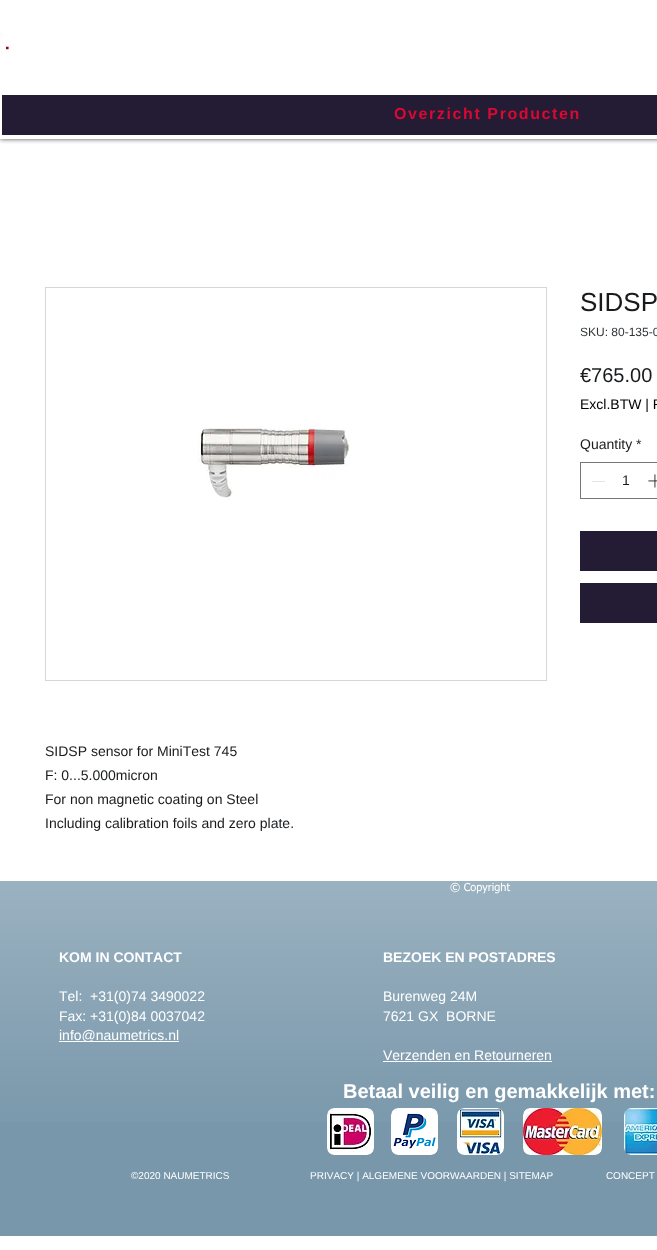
<svg xmlns="http://www.w3.org/2000/svg" width="657" height="1250">
<style>*{font-kerning:none!important;font-variant-ligatures:none!important}</style>
<defs>
<clipPath id="clip1"><rect x="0" y="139" width="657" height="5"/></clipPath>
</defs>
<rect width="100%" height="100%" fill="#fff"/>
<g clip-path="url(#clip1)">
<rect width="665" height="139" fill="#000000b3" filter="blur(2.5px)"/>
</g>
<image x="0" y="33" width="10" height="20" href="media/1.png"/>
<rect x="2" y="95" width="655" height="40" fill="#231c34"/>
<text x="394" y="119" style="font-family:Liberation Sans;font-size:16px;font-weight:bold;letter-spacing:1.6px;fill:#db0834">Overzicht Producten</text>
<text x="580" y="311" style="font-family:Liberation Sans;font-size:26px;fill:#181a1c">SIDSP</text>
<text x="580" y="336" style="font-family:Liberation Sans;font-size:12px;fill:#313538">SKU: 80-135-0</text>
<text x="580" y="382" style="font-family:Liberation Sans;font-size:20px;fill:#181a1c">€765.00</text>
<text x="580" y="409" style="font-family:Liberation Sans;font-size:14px;fill:#000">Excl.BTW | F</text>
<text x="580" y="449" style="font-family:Liberation Sans;font-size:14px;fill:#181a1c">Quantity *</text>
<rect x="580.5" y="462.5" width="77" height="36" fill="none" stroke="#747677"/>
<rect x="592" y="481" width="13" height="1" fill="#e3e3e3"/>
<text x="622" y="485" style="font-family:Liberation Sans;font-size:14px;fill:#181a1c">1</text>
<image x="648" y="474" width="9" height="14" href="media/2.png"/>
<rect x="580" y="531" width="77" height="40" fill="#231c34"/>
<rect x="580" y="583" width="77" height="40" fill="#231c34"/>
<rect x="45.5" y="287.5" width="501" height="393" fill="none" stroke="#d4d6d7"/>
<image x="198" y="424" width="152" height="76" href="media/3.png"/>
<text x="45" y="756" style="font-family:Liberation Sans;font-size:14px;fill:#181a1c">SIDSP sensor for MiniTest 745</text>
<text x="45" y="780" style="font-family:Liberation Sans;font-size:14px;fill:#181a1c">F: 0...5.000micron</text>
<text x="45" y="804" style="font-family:Liberation Sans;font-size:14px;fill:#181a1c">For non magnetic coating on Steel</text>
<text x="45" y="828" style="font-family:Liberation Sans;font-size:14px;fill:#181a1c">Including calibration foils and zero plate.</text>
<rect y="881" width="657" height="355" fill="#7897ab"/>
<image x="0" y="881" width="657" height="241" href="media/4.png"/>
<text x="450" y="891" style="font-family:tahoma;font-size:11px;fill:#fff">© Copyright</text>
<text x="59" y="962" style="font-family:Liberation Sans;font-size:14px;font-weight:bold;fill:#fff">KOM IN CONTACT</text>
<text x="59" y="1001" style="font-family:Liberation Sans;font-size:14px;fill:#fff" xml:space="preserve">Tel:  +31(0)74 3490022</text>
<text x="59" y="1021" style="font-family:Liberation Sans;font-size:14px;fill:#fff">Fax: +31(0)84 0037042</text>
<rect x="59" y="1041" width="120" height="1" fill="#fff"/>
<text x="59" y="1040" style="font-family:Liberation Sans;font-size:14px;fill:#fff">info@naumetrics.nl</text>
<text x="383" y="962" style="font-family:Liberation Sans;font-size:14px;font-weight:bold;fill:#fff">BEZOEK EN POSTADRES</text>
<text x="383" y="1001" style="font-family:Liberation Sans;font-size:14px;fill:#fff">Burenweg 24M</text>
<text x="383" y="1021" style="font-family:Liberation Sans;font-size:14px;fill:#fff" xml:space="preserve">7621 GX  BORNE</text>
<text x="383" y="1060" style="font-family:Liberation Sans;font-size:14px;fill:#fff">Verzenden en Retourneren</text>
<rect x="383" y="1061" width="169" height="1" fill="#fff"/>
<text x="343" y="1098" style="font-family:Liberation Sans;font-size:20px;font-weight:bold;fill:#fff">Betaal veilig en gemakkelijk met:</text>
<image x="327" y="1108" width="47" height="47" href="media/5.png"/>
<image x="391" y="1108" width="47" height="47" href="media/6.png"/>
<image x="457" y="1108" width="47" height="47" href="media/7.png"/>
<image x="523" y="1108" width="79" height="47" href="media/8.png"/>
<image x="624" y="1108" width="33" height="47" href="media/9.png"/>
<text x="131" y="1179" style="font-family:Liberation Sans;font-size:10px;fill:#fff" xml:space="preserve">©2020 NAUMETRICS                             PRIVACY | ALGEMENE VOORWAARDEN | SITEMAP                   CONCEPT</text>
</svg>
